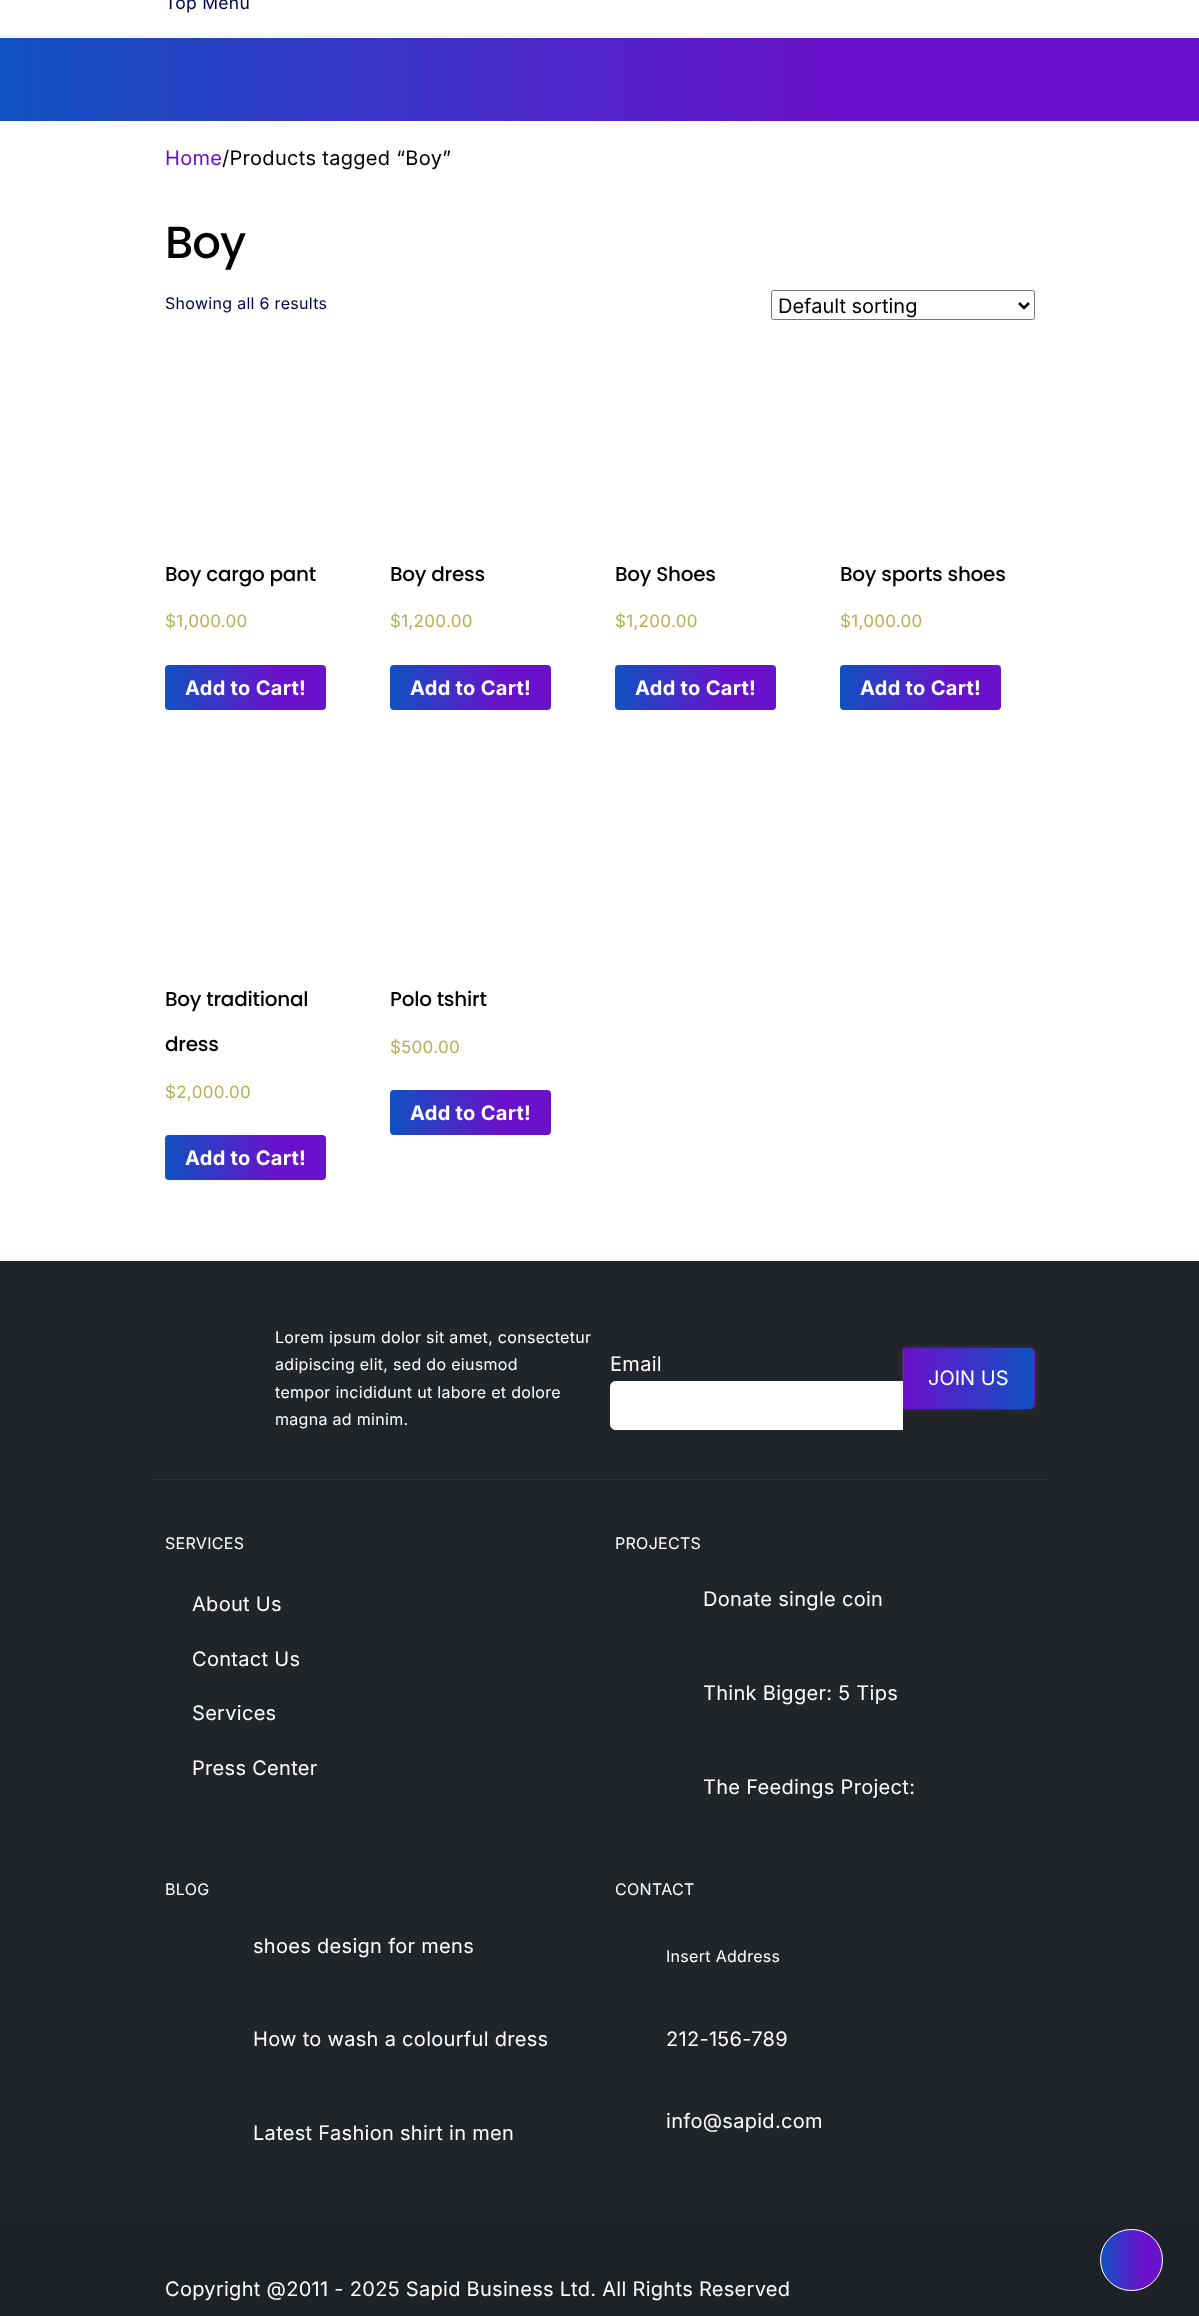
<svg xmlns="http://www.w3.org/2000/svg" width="1199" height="2316">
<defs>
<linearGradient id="g1" gradientUnits="userSpaceOnUse" x1="0" y1="79" x2="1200" y2="79"><stop offset="0" stop-color="#1051c2"/><stop offset="0.7" stop-color="#6a11cb"/></linearGradient>
<linearGradient id="g2" gradientUnits="userSpaceOnUse" x1="165" y1="688" x2="326" y2="688"><stop offset="0" stop-color="#1051c2"/><stop offset="0.7" stop-color="#6a11cb"/></linearGradient>
<linearGradient id="g3" gradientUnits="userSpaceOnUse" x1="390" y1="688" x2="551" y2="688"><stop offset="0" stop-color="#1051c2"/><stop offset="0.7" stop-color="#6a11cb"/></linearGradient>
<linearGradient id="g4" gradientUnits="userSpaceOnUse" x1="615" y1="688" x2="776" y2="688"><stop offset="0" stop-color="#1051c2"/><stop offset="0.7" stop-color="#6a11cb"/></linearGradient>
<linearGradient id="g5" gradientUnits="userSpaceOnUse" x1="840" y1="688" x2="1001" y2="688"><stop offset="0" stop-color="#1051c2"/><stop offset="0.7" stop-color="#6a11cb"/></linearGradient>
<linearGradient id="g6" gradientUnits="userSpaceOnUse" x1="165" y1="1158" x2="326" y2="1158"><stop offset="0" stop-color="#1051c2"/><stop offset="0.7" stop-color="#6a11cb"/></linearGradient>
<linearGradient id="g7" gradientUnits="userSpaceOnUse" x1="390" y1="1113" x2="551" y2="1113"><stop offset="0" stop-color="#1051c2"/><stop offset="0.7" stop-color="#6a11cb"/></linearGradient>
<linearGradient id="g8" gradientUnits="userSpaceOnUse" x1="774" y1="1378" x2="904" y2="1378"><stop offset="0" stop-color="#6a11cb"/><stop offset="1" stop-color="#1051c2"/></linearGradient>
<clipPath id="clip1"><path d="M903 1348h126c3.5 0 6 2.5 6 6v49c0 3.5-2.5 6-6 6h-126z"/></clipPath>
<linearGradient id="g9" gradientUnits="userSpaceOnUse" x1="904" y1="1378" x2="1034" y2="1378"><stop offset="0" stop-color="#6a11cb"/><stop offset="1" stop-color="#1051c2"/></linearGradient>
<linearGradient id="g10" gradientUnits="userSpaceOnUse" x1="1034" y1="1378" x2="1164" y2="1378"><stop offset="0" stop-color="#6a11cb"/><stop offset="1" stop-color="#1051c2"/></linearGradient>
<clipPath id="clip2"><rect x="1100" y="2229" width="63" height="62" rx="31"/></clipPath>
<linearGradient id="g11" gradientUnits="userSpaceOnUse" x1="1101" y1="2260" x2="1161" y2="2260"><stop offset="0" stop-color="#1051c2"/><stop offset="0.7" stop-color="#6a11cb"/></linearGradient>
<linearGradient id="g12" gradientUnits="userSpaceOnUse" x1="1161" y1="2260" x2="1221" y2="2260"><stop offset="0" stop-color="#1051c2"/><stop offset="0.7" stop-color="#6a11cb"/></linearGradient>
</defs>
<rect width="100%" height="100%" fill="#fff"/>
<rect y="36" width="1199" height="1" fill="#edeff0"/>
<text x="165" y="9" style="font-family:Inter;font-size:17.5px;letter-spacing:0.3px;fill:#00004d">Top Menu</text>
<rect y="38" width="1199" height="83" fill="url(#g1)"/>
<text x="165" y="165" style="font-family:Inter;font-size:20px;letter-spacing:0.3px;fill:#6a11cb">Home</text>
<text x="222" y="165" style="font-family:Inter;font-size:20px;letter-spacing:0.3px;fill:#000">/Products tagged “Boy”</text>
<text x="165" y="258" style="font-family:Poppins;font-size:45px;font-weight:500;letter-spacing:-1px;fill:#000">Boy</text>
<text x="165" y="309" style="font-family:Inter;font-size:16px;letter-spacing:0.3px;fill:#00004d">Showing all 6 results</text>
<rect x="771.5" y="290.5" width="263" height="29" rx="2" fill="none" stroke="#767676"/>
<path d="M1019 303l5 5l5-5" fill="none" stroke="#000" stroke-width="2.5"/>
<text x="778" y="313" style="font-family:Inter;font-size:20px;fill:#000">Default sorting</text>
<text x="165" y="581" style="font-family:Poppins;font-size:20px;font-weight:500;letter-spacing:-0.25px;fill:#000">Boy cargo pant</text>
<text x="165" y="627" style="font-family:Inter;font-size:17px;letter-spacing:0.3px;fill:#b3af54">$1,000.00</text>
<rect x="165" y="665" width="161" height="45" rx="4" fill="url(#g2)"/>
<text x="185" y="695" style="font-family:Inter;font-size:20px;font-weight:bold;letter-spacing:0.3px;fill:#fff">Add to Cart!</text>
<text x="390" y="581" style="font-family:Poppins;font-size:20px;font-weight:500;letter-spacing:-0.25px;fill:#000">Boy dress</text>
<text x="390" y="627" style="font-family:Inter;font-size:17px;letter-spacing:0.3px;fill:#b3af54">$1,200.00</text>
<rect x="390" y="665" width="161" height="45" rx="4" fill="url(#g3)"/>
<text x="410" y="695" style="font-family:Inter;font-size:20px;font-weight:bold;letter-spacing:0.3px;fill:#fff">Add to Cart!</text>
<text x="615" y="581" style="font-family:Poppins;font-size:20px;font-weight:500;letter-spacing:-0.25px;fill:#000">Boy Shoes</text>
<text x="615" y="627" style="font-family:Inter;font-size:17px;letter-spacing:0.3px;fill:#b3af54">$1,200.00</text>
<rect x="615" y="665" width="161" height="45" rx="4" fill="url(#g4)"/>
<text x="635" y="695" style="font-family:Inter;font-size:20px;font-weight:bold;letter-spacing:0.3px;fill:#fff">Add to Cart!</text>
<text x="840" y="581" style="font-family:Poppins;font-size:20px;font-weight:500;letter-spacing:-0.25px;fill:#000">Boy sports shoes</text>
<text x="840" y="627" style="font-family:Inter;font-size:17px;letter-spacing:0.3px;fill:#b3af54">$1,000.00</text>
<rect x="840" y="665" width="161" height="45" rx="4" fill="url(#g5)"/>
<text x="860" y="695" style="font-family:Inter;font-size:20px;font-weight:bold;letter-spacing:0.3px;fill:#fff">Add to Cart!</text>
<text x="165" y="1006" style="font-family:Poppins;font-size:20px;font-weight:500;letter-spacing:-0.25px;fill:#000">Boy traditional</text>
<text x="165" y="1051" style="font-family:Poppins;font-size:20px;font-weight:500;letter-spacing:-0.25px;fill:#000">dress</text>
<text x="165" y="1098" style="font-family:Inter;font-size:17px;letter-spacing:0.3px;fill:#b3af54">$2,000.00</text>
<rect x="165" y="1135" width="161" height="45" rx="4" fill="url(#g6)"/>
<text x="185" y="1165" style="font-family:Inter;font-size:20px;font-weight:bold;letter-spacing:0.3px;fill:#fff">Add to Cart!</text>
<text x="390" y="1006" style="font-family:Poppins;font-size:20px;font-weight:500;letter-spacing:-0.25px;fill:#000">Polo tshirt</text>
<text x="390" y="1053" style="font-family:Inter;font-size:17px;letter-spacing:0.3px;fill:#b3af54">$500.00</text>
<rect x="390" y="1090" width="161" height="45" rx="4" fill="url(#g7)"/>
<text x="410" y="1120" style="font-family:Inter;font-size:20px;font-weight:bold;letter-spacing:0.3px;fill:#fff">Add to Cart!</text>
<rect y="1260" width="1199" height="1" fill="#edeff0"/>
<rect y="1261" width="1199" height="962" fill="#212529"/>
<rect x="150" y="1479" width="900" height="1" fill="#2c3136"/>
<text x="275" y="1343" style="font-family:Inter;font-size:16px;letter-spacing:0.3px;fill:#fff">Lorem ipsum dolor sit amet, consectetur</text>
<text x="275" y="1370" style="font-family:Inter;font-size:16px;letter-spacing:0.3px;fill:#fff">adipiscing elit, sed do eiusmod</text>
<text x="275" y="1398" style="font-family:Inter;font-size:16px;letter-spacing:0.3px;fill:#fff">tempor incididunt ut labore et dolore</text>
<text x="275" y="1425" style="font-family:Inter;font-size:16px;letter-spacing:0.3px;fill:#fff">magna ad minim.</text>
<text x="610" y="1371" style="font-family:Inter;font-size:20px;letter-spacing:0.3px;fill:#fff">Email</text>
<path d="M616 1381h287v49h-287c-3.5 0-6-2.5-6-6v-37c0-3.5 2.5-6 6-6z" fill="#fff"/>
<rect x="614" y="1429" width="2" height="1" fill="#fff"/>
<rect x="903" y="1348" width="132" height="61" rx="6" fill="#73809d4d" filter="blur(2.5px)"/>
<rect x="903" y="1348" width="1" height="61" fill="url(#g8)"/>
<g clip-path="url(#clip1)">
<rect x="904" y="1348" width="130" height="61" fill="url(#g9)"/>
<rect x="1034" y="1348" width="1" height="61" fill="url(#g10)"/>
</g>
<text x="928" y="1385" style="font-family:Inter;font-size:20px;fill:#fff">JOIN US</text>
<text x="165" y="1549" style="font-family:Inter;font-size:16px;letter-spacing:0.3px;fill:#fff">SERVICES</text>
<text x="192" y="1611" style="font-family:Inter;font-size:20px;letter-spacing:0.3px;fill:#fff">About Us</text>
<text x="192" y="1666" style="font-family:Inter;font-size:20px;letter-spacing:0.3px;fill:#fff">Contact Us</text>
<text x="192" y="1720" style="font-family:Inter;font-size:20px;letter-spacing:0.3px;fill:#fff">Services</text>
<text x="192" y="1775" style="font-family:Inter;font-size:20px;letter-spacing:0.3px;fill:#fff">Press Center</text>
<text x="615" y="1549" style="font-family:Inter;font-size:16px;letter-spacing:0.3px;fill:#fff">PROJECTS</text>
<text x="703" y="1606" style="font-family:Inter;font-size:20px;letter-spacing:0.3px;fill:#fff">Donate single coin</text>
<text x="703" y="1700" style="font-family:Inter;font-size:20px;letter-spacing:0.3px;fill:#fff">Think Bigger: 5 Tips</text>
<text x="703" y="1794" style="font-family:Inter;font-size:20px;letter-spacing:0.3px;fill:#fff">The Feedings Project:</text>
<text x="165" y="1895" style="font-family:Inter;font-size:16px;letter-spacing:0.3px;fill:#fff">BLOG</text>
<text x="253" y="1953" style="font-family:Inter;font-size:20px;letter-spacing:0.3px;fill:#fff">shoes design for mens</text>
<text x="253" y="2046" style="font-family:Inter;font-size:20px;letter-spacing:0.3px;fill:#fff">How to wash a colourful dress</text>
<text x="253" y="2140" style="font-family:Inter;font-size:20px;letter-spacing:0.3px;fill:#fff">Latest Fashion shirt in men</text>
<text x="615" y="1895" style="font-family:Inter;font-size:16px;letter-spacing:0.3px;fill:#fff">CONTACT</text>
<text x="666" y="1962" style="font-family:Inter;font-size:16px;letter-spacing:0.3px;fill:#fff">Insert Address</text>
<text x="666" y="2046" style="font-family:Inter;font-size:20px;letter-spacing:0.3px;fill:#fff">212-156-789</text>
<text x="666" y="2128" style="font-family:Inter;font-size:20px;letter-spacing:0.3px;fill:#fff">info@sapid.com</text>
<rect y="2223" width="1199" height="93" fill="#1e2125"/>
<text x="165" y="2296" style="font-family:Inter;font-size:20px;letter-spacing:0.3px;fill:#fff">Copyright @2011 - 2025 Sapid Business Ltd. All Rights Reserved</text>
<g clip-path="url(#clip2)">
<rect x="1101" y="2229" width="60" height="62" fill="url(#g11)"/>
<rect x="1161" y="2249" width="2" height="22" fill="url(#g12)"/>
</g>
<rect x="1100.5" y="2229.5" width="62" height="61" rx="30.5" fill="none" stroke="#fff"/>
</svg>
